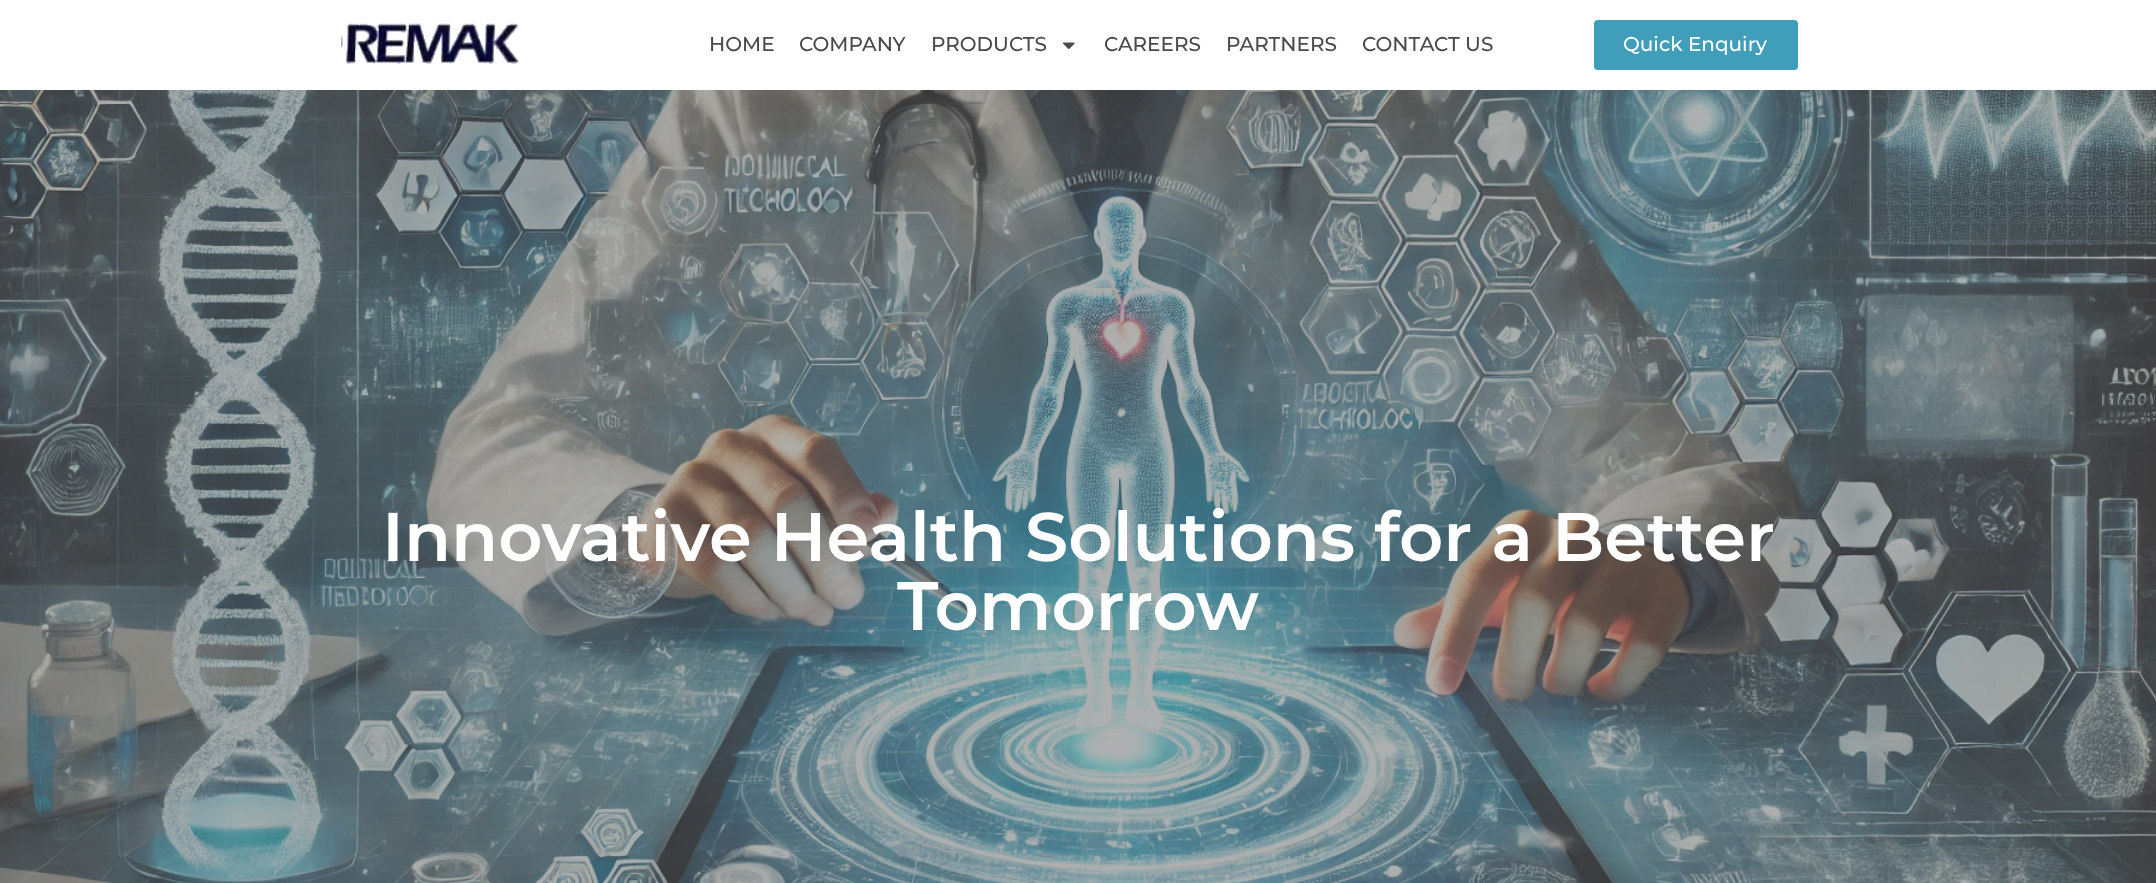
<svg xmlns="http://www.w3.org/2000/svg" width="2156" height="883">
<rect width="100%" height="100%" fill="#fff"/>
<image x="341" y="23" width="178" height="41" href="media/1.png"/>
<text x="709" y="51" style="font-family:Montserrat;font-size:20px;font-weight:500;fill:#4b494a">HOME</text>
<text x="799" y="51" style="font-family:Montserrat;font-size:20px;font-weight:500;fill:#4b494a">COMPANY</text>
<text x="931" y="51" style="font-family:Montserrat;font-size:20px;font-weight:500;fill:#4b494a">PRODUCTS</text>
<image x="1063" y="42" width="12" height="7" href="media/2.png"/>
<text x="1104" y="51" style="font-family:Montserrat;font-size:20px;font-weight:500;fill:#4b494a">CAREERS</text>
<text x="1226" y="51" style="font-family:Montserrat;font-size:20px;font-weight:500;fill:#4b494a">PARTNERS</text>
<text x="1362" y="51" style="font-family:Montserrat;font-size:20px;font-weight:500;fill:#4b494a">CONTACT US</text>
<rect x="1594" y="20" width="204" height="50" rx="4" fill="#419eba"/>
<text x="1623" y="51" style="font-family:Montserrat;font-size:20px;font-weight:500;fill:#fff">Quick Enquiry</text>
<image x="0" y="90" width="2156" height="793" href="media/3.png"/>
<text x="382" y="561" style="font-family:Montserrat;font-size:68.75px;font-weight:600;fill:#fff">Innovative Health Solutions for a Better</text>
<text x="897" y="630" style="font-family:Montserrat;font-size:68.75px;font-weight:600;fill:#fff">Tomorrow</text>
</svg>
